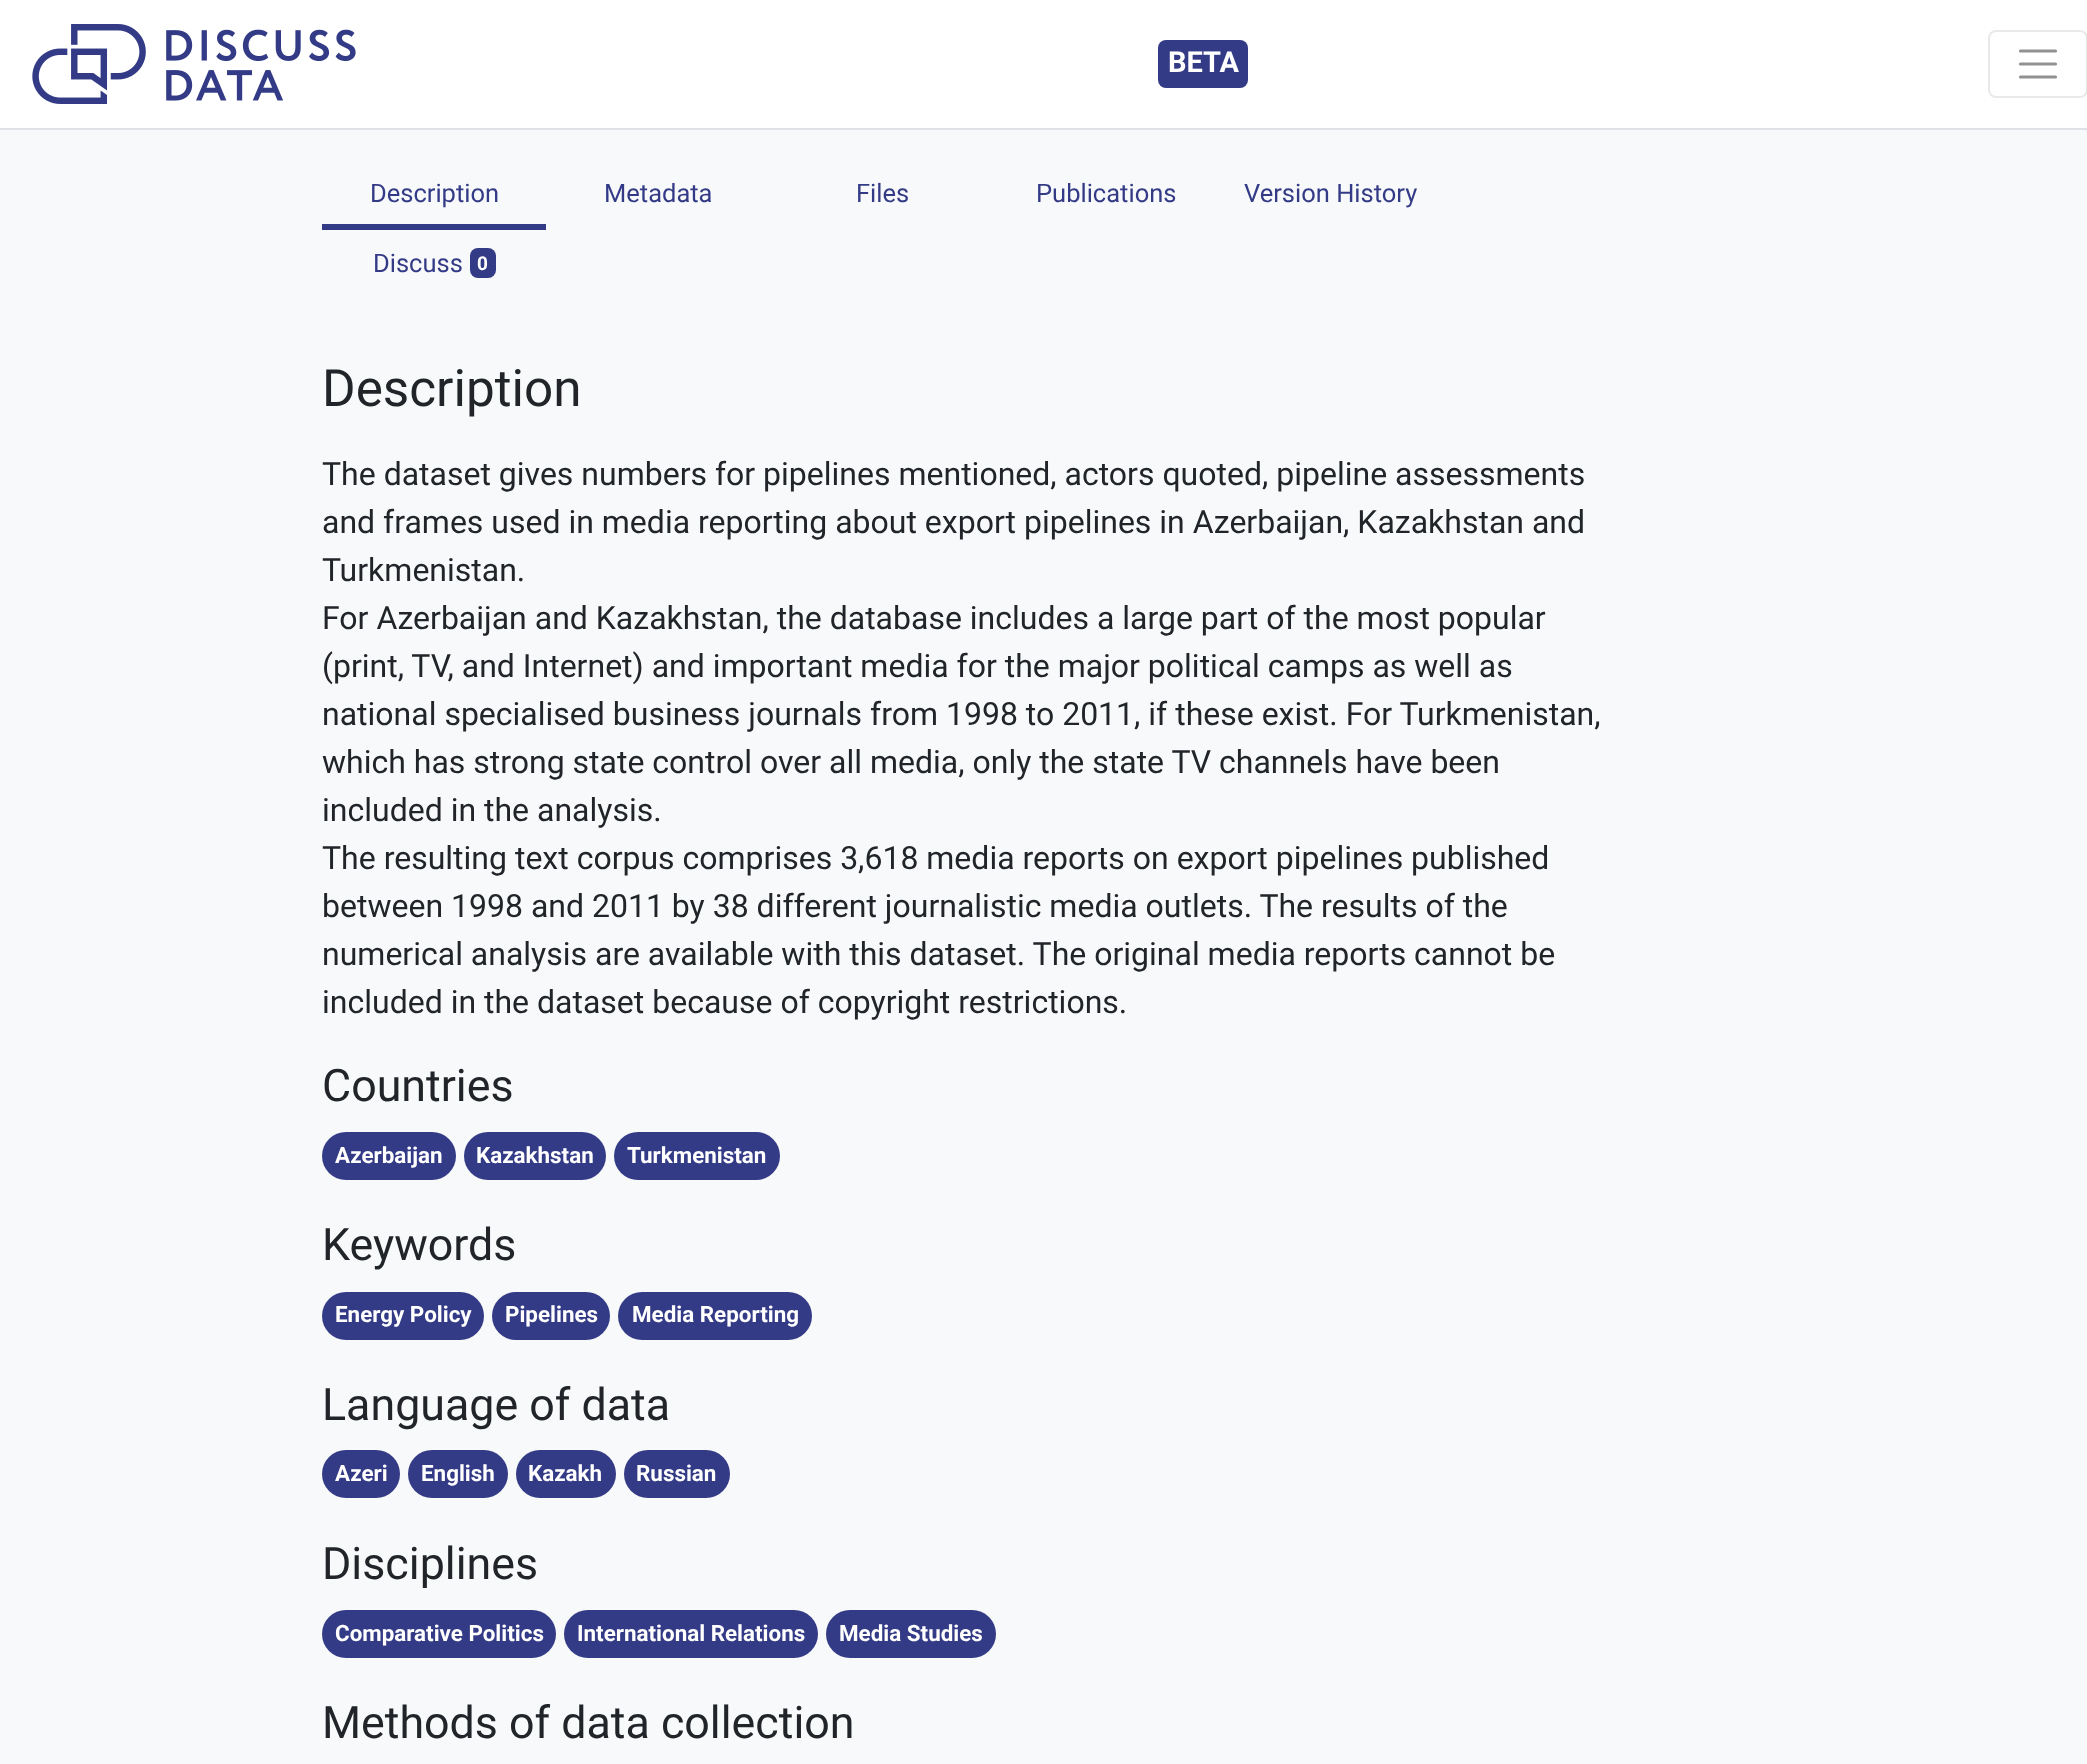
<svg xmlns="http://www.w3.org/2000/svg" width="2087" height="1764">
<rect width="100%" height="100%" fill="#f8f9fa"/>
<rect width="2087" height="128" fill="#fff"/>
<rect y="128" width="2087" height="2" fill="#dee2e6"/>
<image x="32" y="24" width="324" height="80" href="media/1.png"/>
<rect x="1158" y="40" width="90" height="48" rx="8" fill="#343b86"/>
<text x="1168" y="72" style="font-family:Roboto;font-size:29px;font-weight:bold;fill:#fff">BETA</text>
<rect x="1989" y="31" width="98" height="66" rx="7" fill="none" stroke="#e9e9e9" stroke-width="2"/>
<path d="M2020.5 51h35m-35 13h35m-35 13h35" fill="none" stroke="#919191" stroke-width="3.2" stroke-linecap="round"/>
<rect x="322" y="224" width="224" height="6" fill="#343b86"/>
<text x="370" y="202" style="font-family:Roboto;font-size:25.5px;fill:#343b86">Description</text>
<text x="604" y="202" style="font-family:Roboto;font-size:25.5px;fill:#343b86">Metadata</text>
<text x="856" y="202" style="font-family:Roboto;font-size:25.5px;fill:#343b86">Files</text>
<text x="1036" y="202" style="font-family:Roboto;font-size:25.5px;fill:#343b86">Publications</text>
<text x="1244" y="202" style="font-family:Roboto;font-size:25.5px;fill:#343b86">Version History</text>
<text x="373" y="272" style="font-family:Roboto;font-size:25.5px;fill:#343b86">Discuss</text>
<rect x="470" y="248" width="26" height="30" rx="8" fill="#343b86"/>
<text x="477" y="270" style="font-family:Roboto;font-size:19px;font-weight:bold;fill:#fff">0</text>
<text x="322" y="406" style="font-family:Roboto;font-size:51.25px;fill:#212529">Description</text>
<text x="322" y="485" style="font-family:Roboto;font-size:32px;fill:#212529">The dataset gives numbers for pipelines mentioned, actors quoted, pipeline assessments</text>
<text x="322" y="533" style="font-family:Roboto;font-size:32px;fill:#212529">and frames used in media reporting about export pipelines in Azerbaijan, Kazakhstan and</text>
<text x="322" y="581" style="font-family:Roboto;font-size:32px;fill:#212529">Turkmenistan.</text>
<text x="322" y="629" style="font-family:Roboto;font-size:32px;fill:#212529">For Azerbaijan and Kazakhstan, the database includes a large part of the most popular</text>
<text x="322" y="677" style="font-family:Roboto;font-size:32px;fill:#212529">(print, TV, and Internet) and important media for the major political camps as well as</text>
<text x="322" y="725" style="font-family:Roboto;font-size:32px;fill:#212529">national specialised business journals from 1998 to 2011, if these exist. For Turkmenistan,</text>
<text x="322" y="773" style="font-family:Roboto;font-size:32px;fill:#212529">which has strong state control over all media, only the state TV channels have been</text>
<text x="322" y="821" style="font-family:Roboto;font-size:32px;fill:#212529">included in the analysis.</text>
<text x="322" y="869" style="font-family:Roboto;font-size:32px;fill:#212529">The resulting text corpus comprises 3,618 media reports on export pipelines published</text>
<text x="322" y="917" style="font-family:Roboto;font-size:32px;fill:#212529">between 1998 and 2011 by 38 different journalistic media outlets. The results of the</text>
<text x="322" y="965" style="font-family:Roboto;font-size:32px;fill:#212529">numerical analysis are available with this dataset. The original media reports cannot be</text>
<text x="322" y="1013" style="font-family:Roboto;font-size:32px;fill:#212529">included in the dataset because of copyright restrictions.</text>
<text x="322" y="1101" style="font-family:Roboto;font-size:44.75px;fill:#212529">Countries</text>
<rect x="322" y="1132" width="134" height="48" rx="24" fill="#343b86"/>
<text x="335" y="1163" style="font-family:Roboto;font-size:22.4px;font-weight:bold;fill:#fff">Azerbaijan</text>
<rect x="464" y="1132" width="142" height="48" rx="24" fill="#343b86"/>
<text x="476" y="1163" style="font-family:Roboto;font-size:22.4px;font-weight:bold;fill:#fff">Kazakhstan</text>
<rect x="614" y="1132" width="166" height="48" rx="24" fill="#343b86"/>
<text x="627" y="1163" style="font-family:Roboto;font-size:22.4px;font-weight:bold;fill:#fff">Turkmenistan</text>
<text x="322" y="1260" style="font-family:Roboto;font-size:44.75px;fill:#212529">Keywords</text>
<rect x="322" y="1292" width="162" height="48" rx="24" fill="#343b86"/>
<text x="335" y="1322" style="font-family:Roboto;font-size:22.4px;font-weight:bold;fill:#fff">Energy Policy</text>
<rect x="492" y="1292" width="118" height="48" rx="24" fill="#343b86"/>
<text x="505" y="1322" style="font-family:Roboto;font-size:22.4px;font-weight:bold;fill:#fff">Pipelines</text>
<rect x="618" y="1292" width="194" height="48" rx="24" fill="#343b86"/>
<text x="632" y="1322" style="font-family:Roboto;font-size:22.4px;font-weight:bold;fill:#fff">Media Reporting</text>
<text x="322" y="1420" style="font-family:Roboto;font-size:44.75px;fill:#212529">Language of data</text>
<rect x="322" y="1450" width="78" height="48" rx="24" fill="#343b86"/>
<text x="335" y="1481" style="font-family:Roboto;font-size:22.4px;font-weight:bold;fill:#fff">Azeri</text>
<rect x="408" y="1450" width="100" height="48" rx="24" fill="#343b86"/>
<text x="421" y="1481" style="font-family:Roboto;font-size:22.4px;font-weight:bold;fill:#fff">English</text>
<rect x="516" y="1450" width="100" height="48" rx="24" fill="#343b86"/>
<text x="528" y="1481" style="font-family:Roboto;font-size:22.4px;font-weight:bold;fill:#fff">Kazakh</text>
<rect x="624" y="1450" width="106" height="48" rx="24" fill="#343b86"/>
<text x="636" y="1481" style="font-family:Roboto;font-size:22.4px;font-weight:bold;fill:#fff">Russian</text>
<text x="322" y="1579" style="font-family:Roboto;font-size:44.75px;fill:#212529">Disciplines</text>
<rect x="322" y="1610" width="234" height="48" rx="24" fill="#343b86"/>
<text x="335" y="1641" style="font-family:Roboto;font-size:22.4px;font-weight:bold;fill:#fff">Comparative Politics</text>
<rect x="564" y="1610" width="254" height="48" rx="24" fill="#343b86"/>
<text x="577" y="1641" style="font-family:Roboto;font-size:22.4px;font-weight:bold;fill:#fff">International Relations</text>
<rect x="826" y="1610" width="170" height="48" rx="24" fill="#343b86"/>
<text x="839" y="1641" style="font-family:Roboto;font-size:22.4px;font-weight:bold;fill:#fff">Media Studies</text>
<text x="322" y="1738" style="font-family:Roboto;font-size:44.75px;fill:#212529">Methods of data collection</text>
</svg>
